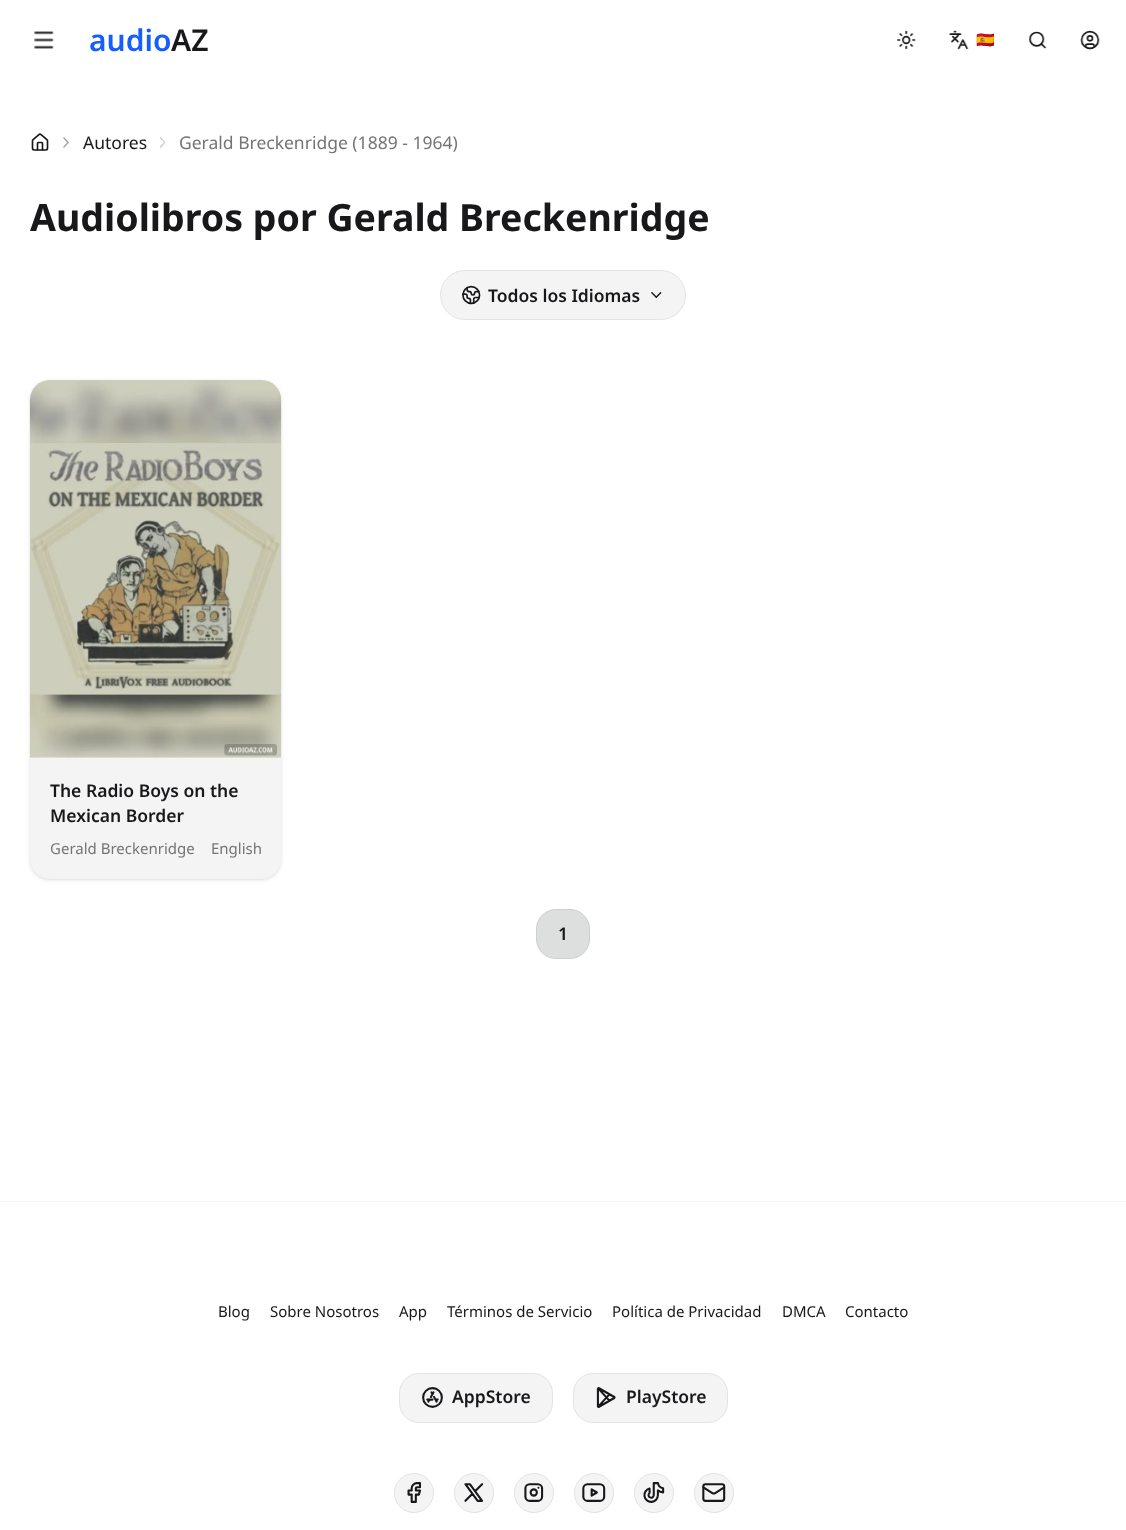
<svg xmlns="http://www.w3.org/2000/svg" width="1126" height="1530">
<rect width="100%" height="100%" fill="#fff"/>
<image x="34" y="31" width="20" height="18" href="media/1.png"/>
<text x="89" y="51" style="font-family:Noto Sans;font-size:30px;font-weight:600;fill:#155dfc">audio</text>
<text x="171" y="51" style="font-family:Noto Sans;font-size:30px;font-weight:600;fill:#18181b">AZ</text>
<image x="897" y="30" width="19" height="20" href="media/2.png"/>
<image x="949" y="30" width="20" height="20" href="media/3.png"/>
<text x="976" y="45" style="font-family:Noto Color Emoji;font-size:15px;fill:#18181b">🇪🇸</text>
<image x="1029" y="31" width="18" height="18" href="media/4.png"/>
<image x="1080" y="30" width="20" height="20" href="media/5.png"/>
<image x="31" y="133" width="18" height="18" href="media/6.png"/>
<path d="M64 137l5 5.5l-1 1l-5-5.5z" fill="#a3a3a4"/>
<path d="M68 141.5l1 1l-5 5.5l-1-1z" fill="#a3a3a4"/>
<text x="83" y="149" style="font-family:Noto Sans;font-size:17.5px;fill:#18181b">Autores</text>
<path d="M160.5 137l5 5.5h-1.5l-4.5-4.5z" fill="#c8c8c8"/>
<path d="M165.5 142.5l-5 5.5l-1-1l4.5-4.5z" fill="#a3a3a499"/>
<text x="179" y="149" style="font-family:Noto Sans;font-size:17.5px;fill:#747476">Gerald Breckenridge (1889 - 1964)</text>
<text x="30" y="231" style="font-family:Noto Sans;font-size:37.5px;font-weight:bold;fill:#18181b">Audiolibros por Gerald Breckenridge</text>
<rect x="440.5" y="270.5" width="245" height="49" rx="24.5" fill="#f4f4f5" stroke="#e4e4e5"/>
<image x="462" y="285" width="19" height="20" href="media/7.png"/>
<text x="488" y="302" style="font-family:Noto Sans;font-size:17.5px;font-weight:600;fill:#18181b">Todos los Idiomas</text>
<image x="651" y="292" width="11" height="6" href="media/8.png"/>
<rect x="31" y="383" width="249" height="496" rx="19" fill="#0000001a" filter="blur(1px)"/>
<rect x="30" y="381" width="251" height="499" rx="20" fill="#0000001a" filter="blur(2px)"/>
<rect x="30" y="380" width="251" height="499" rx="20" fill="#f4f4f5"/>
<path d="M50 380h211c11 0 20 9 20 20v358h-251v-358c0-11 9-20 20-20z" fill="#f1f0de"/>
<image x="30" y="380" width="252" height="378" href="media/9.png"/>
<text x="50" y="797" style="font-family:Noto Sans;font-size:17.5px;font-weight:600;fill:#18181b">The Radio Boys on the</text>
<text x="50" y="822" style="font-family:Noto Sans;font-size:17.5px;font-weight:600;fill:#18181b">Mexican Border</text>
<text x="50" y="854" style="font-family:Noto Sans;font-size:15px;fill:#747476">Gerald Breckenridge</text>
<text x="211" y="854" style="font-family:Noto Sans;font-size:15px;fill:#747476">English</text>
<rect x="536.5" y="909.5" width="53" height="49" rx="19.5" fill="#dddede" stroke="#cfcfd0"/>
<text x="558" y="940" style="font-family:Noto Sans;font-size:17.5px;font-weight:600;fill:#18181b">1</text>
<rect y="1201" width="1126" height="1" fill="#f4f4f5"/>
<text x="218" y="1317" style="font-family:Noto Sans;font-size:15px;fill:#18181b">Blog</text>
<text x="270" y="1317" style="font-family:Noto Sans;font-size:15px;fill:#18181b">Sobre Nosotros</text>
<text x="399" y="1317" style="font-family:Noto Sans;font-size:15px;fill:#18181b">App</text>
<text x="447" y="1317" style="font-family:Noto Sans;font-size:15px;fill:#18181b">Términos de Servicio</text>
<text x="612" y="1317" style="font-family:Noto Sans;font-size:15px;fill:#18181b">Política de Privacidad</text>
<text x="782" y="1317" style="font-family:Noto Sans;font-size:15px;fill:#18181b">DMCA</text>
<text x="845" y="1317" style="font-family:Noto Sans;font-size:15px;fill:#18181b">Contacto</text>
<rect x="399.5" y="1373.5" width="153" height="49" rx="19.5" fill="#f4f4f5" stroke="#e4e4e5"/>
<image x="422" y="1387" width="21" height="21" href="media/10.png"/>
<text x="452" y="1403" style="font-family:Noto Sans;font-size:17.5px;font-weight:600;fill:#18181b">AppStore</text>
<rect x="573.5" y="1373.5" width="154" height="49" rx="19.5" fill="#f4f4f5" stroke="#e4e4e5"/>
<image x="596" y="1387" width="20" height="21" href="media/11.png"/>
<text x="626" y="1403" style="font-family:Noto Sans;font-size:17.5px;font-weight:600;fill:#18181b">PlayStore</text>
<circle cx="414" cy="1493" r="19.5" fill="#f4f4f5" stroke="#e4e4e5"/>
<image x="407" y="1482" width="15" height="21" href="media/12.png"/>
<circle cx="474" cy="1493" r="19.5" fill="#f4f4f5" stroke="#e4e4e5"/>
<image x="464" y="1483" width="20" height="19" href="media/13.png"/>
<circle cx="534" cy="1493" r="19.5" fill="#f4f4f5" stroke="#e4e4e5"/>
<image x="524" y="1483" width="20" height="19" href="media/14.png"/>
<circle cx="594" cy="1493" r="19.5" fill="#f4f4f5" stroke="#e4e4e5"/>
<image x="582" y="1483" width="24" height="19" href="media/15.png"/>
<circle cx="654" cy="1493" r="19.5" fill="#f4f4f5" stroke="#e4e4e5"/>
<image x="643" y="1482" width="22" height="21" href="media/16.png"/>
<circle cx="714" cy="1493" r="19.5" fill="#f4f4f5" stroke="#e4e4e5"/>
<image x="702" y="1483" width="24" height="19" href="media/17.png"/>
</svg>
